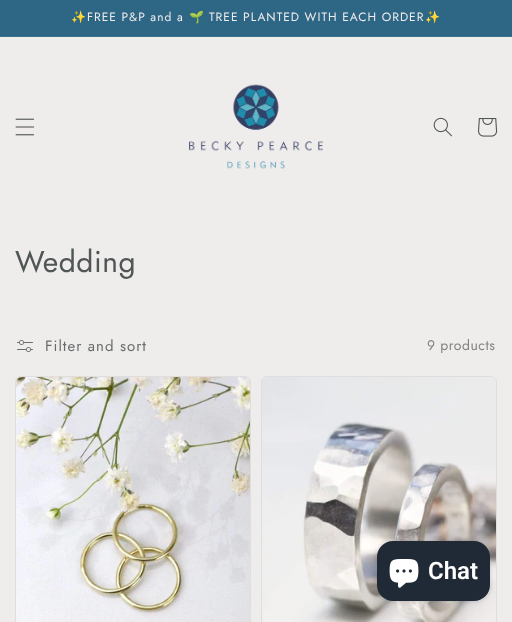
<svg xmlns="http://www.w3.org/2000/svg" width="512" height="622">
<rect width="100%" height="100%" fill="#efecec"/>
<rect width="512" height="36" fill="#2e6785"/>
<rect y="36" width="512" height="1" fill="#3d728d"/>
<text x="71" y="21" style="font-family:Noto Color Emoji;font-size:12px;letter-spacing:1px;fill:#efecec">✨</text>
<text x="87" y="21" style="font-family:Jost;font-size:12px;letter-spacing:1px;fill:#efecec">FREE P&amp;P and a</text>
<text x="189" y="21" style="font-family:Noto Color Emoji;font-size:12px;letter-spacing:1px;fill:#efecec">🌱</text>
<text x="209" y="21" style="font-family:Jost;font-size:12px;letter-spacing:1px;fill:#efecec">TREE PLANTED WITH EACH ORDER</text>
<text x="425" y="21" style="font-family:Noto Color Emoji;font-size:12px;letter-spacing:1px;fill:#efecec">✨</text>
<image x="15" y="118" width="20" height="18" href="media/1.png"/>
<image x="189" y="84" width="134" height="85" href="media/2.png"/>
<image x="433" y="117" width="19" height="20" href="media/3.png"/>
<image x="478" y="118" width="20" height="19" href="media/4.png"/>
<text x="15" y="272" style="font-family:Jost;font-size:30px;letter-spacing:0.5px;fill:#505655">Wedding</text>
<image x="17" y="340" width="16" height="12" href="media/5.png"/>
<text x="45" y="351" style="font-family:Jost;font-size:15px;letter-spacing:1px;fill:#686d6c">Filter and sort</text>
<text x="427" y="350" style="font-family:Jost;font-size:14px;letter-spacing:0.5px;fill:#808382">9 products</text>
<rect x="15.5" y="376.5" width="235" height="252" rx="5.5" fill="none" stroke="#dfdddd"/>
<image x="16" y="377" width="234" height="245" href="media/6.png"/>
<rect x="261.5" y="376.5" width="235" height="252" rx="5.5" fill="none" stroke="#dfdddd"/>
<image x="262" y="377" width="234" height="245" href="media/7.png"/>
<rect x="377" y="541" width="113" height="60" rx="16" fill="#00000026" filter="blur(2.5px)"/>
<rect x="377" y="541" width="113" height="60" rx="16" fill="#202a36"/>
<image x="389" y="559" width="30" height="29" href="media/8.png"/>
<text x="428" y="579" style="font-family:Roboto;font-size:24px;font-weight:600;fill:#fff">Chat</text>
</svg>
